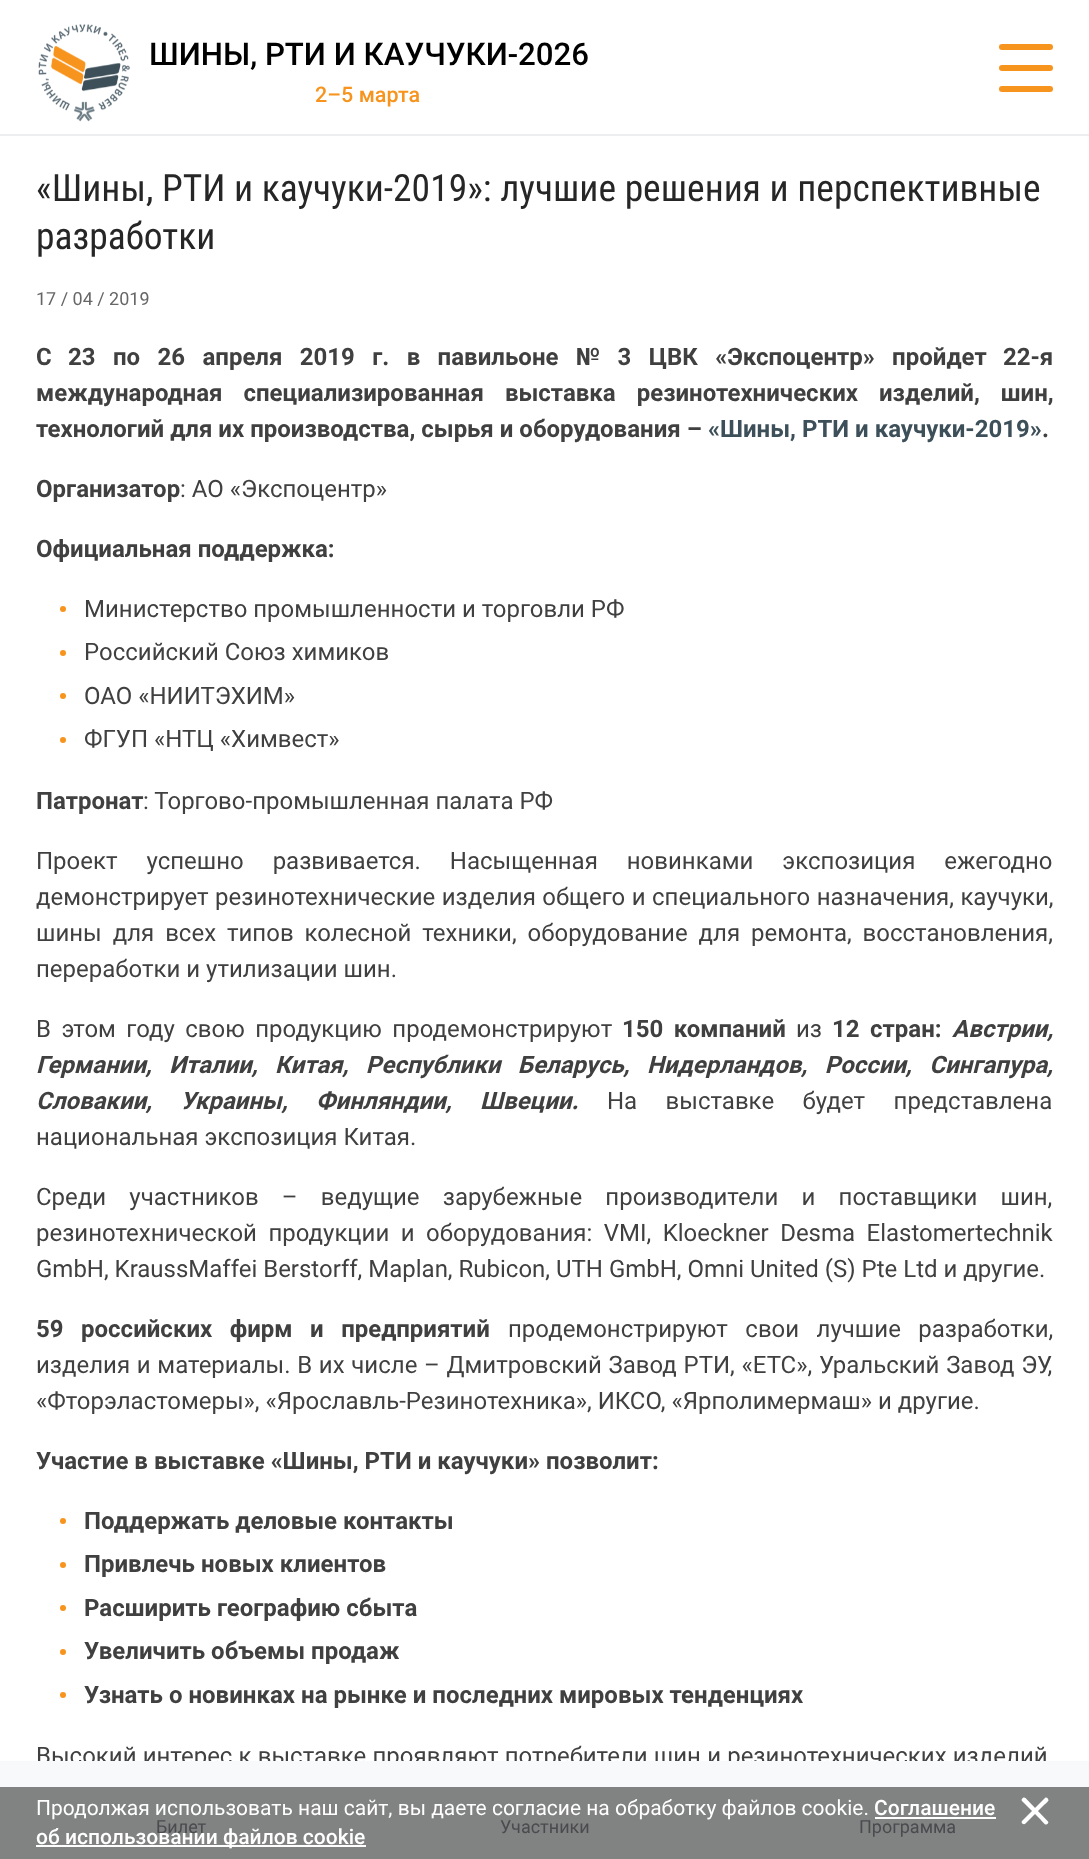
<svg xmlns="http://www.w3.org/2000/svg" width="1089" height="1859">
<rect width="100%" height="100%" fill="#fff"/>
<rect y="134" width="1089" height="2" fill="#edeeef"/>
<image x="38" y="24" width="92" height="98" href="media/1.png"/>
<text x="149" y="65" style="font-family:Roboto;font-size:31.25px;font-weight:500;fill:#000">ШИНЫ, РТИ И КАУЧУКИ-2026</text>
<text x="315" y="102" style="font-family:Roboto;font-size:21.5px;font-weight:500;fill:#f7941e">2–5 марта</text>
<rect x="999" y="65" width="54" height="6" rx="3" fill="#f7941e"/>
<rect x="999" y="44" width="54" height="6" rx="3" fill="#f7941e"/>
<rect x="999" y="86" width="54" height="6" rx="3" fill="#f7941e"/>
<text x="36" y="201" style="font-family:Roboto Condensed;font-size:37.5px;fill:#262626">«Шины, РТИ и каучуки-2019»: лучшие решения и перспективные</text>
<text x="36" y="249" style="font-family:Roboto Condensed;font-size:37.5px;fill:#262626">разработки</text>
<text x="36" y="305" style="font-family:Roboto;font-size:18px;fill:#666">17 / 04 / 2019</text>
<text x="36" y="365" style="font-family:Roboto;font-size:24px;font-weight:bold;fill:#404040">С</text>
<text x="68" y="365" word-spacing="11.4" style="font-family:Roboto;font-size:24px;font-weight:bold;fill:#404040">23 по 26 апреля 2019 г. в павильоне № 3 ЦВК «Экспоцентр» пройдет</text>
<text x="1003" y="365" style="font-family:Roboto;font-size:24px;font-weight:bold;fill:#404040">22-я</text>
<text x="36" y="401" word-spacing="15" style="font-family:Roboto;font-size:24px;font-weight:bold;fill:#404040">международная специализированная выставка резинотехнических изделий, шин,</text>
<text x="36" y="437" style="font-family:Roboto;font-size:24px;font-weight:bold;fill:#404040">технологий для их производства, сырья и оборудования –</text>
<text x="708" y="437" style="font-family:Roboto;font-size:24px;font-weight:bold;fill:#3d4f59">«Шины, РТИ и каучуки-2019»</text>
<text x="1042" y="437" style="font-family:Roboto;font-size:24px;font-weight:bold;fill:#404040">.</text>
<text x="36" y="497" style="font-family:Roboto;font-size:24px;font-weight:bold;fill:#404040">Организатор</text>
<text x="180" y="497" style="font-family:Roboto;font-size:24px;fill:#404040">: АО «Экспоцентр»</text>
<text x="36" y="557" style="font-family:Roboto;font-size:24px;font-weight:bold;fill:#404040">Официальная поддержка:</text>
<circle cx="63" cy="609" r="3" fill="#f7941e"/>
<text x="84" y="617" style="font-family:Roboto;font-size:24px;fill:#404040">Министерство промышленности и торговли РФ</text>
<circle cx="63" cy="653" r="3" fill="#f7941e"/>
<text x="84" y="660" style="font-family:Roboto;font-size:24px;fill:#404040">Российский Союз химиков</text>
<circle cx="63" cy="696" r="3" fill="#f7941e"/>
<text x="84" y="704" style="font-family:Roboto;font-size:24px;fill:#404040">ОАО «НИИТЭХИМ»</text>
<circle cx="63" cy="740" r="3" fill="#f7941e"/>
<text x="84" y="747" style="font-family:Roboto;font-size:24px;fill:#404040">ФГУП «НТЦ «Химвест»</text>
<text x="36" y="809" style="font-family:Roboto;font-size:24px;font-weight:bold;fill:#404040">Патронат</text>
<text x="143" y="809" style="font-family:Roboto;font-size:24px;fill:#404040">: Торгово-промышленная палата РФ</text>
<text x="36" y="869" word-spacing="23" style="font-family:Roboto;font-size:24px;fill:#404040">Проект успешно развивается. Насыщенная новинками экспозиция ежегодно</text>
<text x="36" y="905" word-spacing="0.5" style="font-family:Roboto;font-size:24px;fill:#404040">демонстрирует резинотехнические изделия общего и специального назначения, каучуки,</text>
<text x="36" y="941" word-spacing="5" style="font-family:Roboto;font-size:24px;fill:#404040">шины для всех типов колесной техники, оборудование для ремонта, восстановления,</text>
<text x="36" y="977" style="font-family:Roboto;font-size:24px;fill:#404040">переработки и утилизации шин.</text>
<text x="36" y="1037" word-spacing="4.5" style="font-family:Roboto;font-size:24px;fill:#404040">В этом году свою продукцию продемонстрируют</text>
<text x="622" y="1037" word-spacing="4.5" style="font-family:Roboto;font-size:24px;font-weight:bold;fill:#404040">150 компаний</text>
<text x="796" y="1037" style="font-family:Roboto;font-size:24px;fill:#404040">из</text>
<text x="832" y="1037" word-spacing="4.5" style="font-family:Roboto;font-size:24px;font-weight:bold;fill:#404040">12 стран:</text>
<text x="952" y="1037" style="font-family:Roboto;font-size:24px;font-weight:bold;font-style:italic;fill:#404040">Австрии,</text>
<text x="36" y="1073" word-spacing="11.5" style="font-family:Roboto;font-size:24px;font-weight:bold;font-style:italic;fill:#404040">Германии, Италии, Китая, Республики Беларусь, Нидерландов, России, Сингапура,</text>
<text x="36" y="1109" word-spacing="22.5" style="font-family:Roboto;font-size:24px;font-weight:bold;font-style:italic;fill:#404040">Словакии, Украины, Финляндии, Швеции.</text>
<text x="607" y="1109" word-spacing="22.5" style="font-family:Roboto;font-size:24px;fill:#404040">На выставке будет представлена</text>
<text x="36" y="1145" style="font-family:Roboto;font-size:24px;fill:#404040">национальная экспозиция Китая.</text>
<text x="36" y="1205" word-spacing="17.25" style="font-family:Roboto;font-size:24px;fill:#404040">Среди участников – ведущие зарубежные производители и поставщики шин,</text>
<text x="36" y="1241" word-spacing="5.5" style="font-family:Roboto;font-size:24px;fill:#404040">резинотехнической продукции и оборудования: VMI, Kloeckner Desma Elastomertechnik</text>
<text x="36" y="1277" style="font-family:Roboto;font-size:24px;fill:#404040">GmbH, KraussMaffei Berstorff, Maplan, Rubicon, UTH GmbH, Omni United (S) Pte Ltd и другие.</text>
<text x="36" y="1337" word-spacing="11.5" style="font-family:Roboto;font-size:24px;font-weight:bold;fill:#404040">59 российских фирм и предприятий</text>
<text x="508" y="1337" word-spacing="11.5" style="font-family:Roboto;font-size:24px;fill:#404040">продемонстрируют свои лучшие разработки,</text>
<text x="36" y="1373" word-spacing="0.75" style="font-family:Roboto;font-size:24px;fill:#404040">изделия и материалы. В их числе – Дмитровский Завод РТИ, «ЕТС», Уральский Завод ЭУ,</text>
<text x="36" y="1409" style="font-family:Roboto;font-size:24px;fill:#404040">«Фторэластомеры», «Ярославль-Резинотехника», ИКСО, «Ярполимермаш» и другие.</text>
<text x="36" y="1469" style="font-family:Roboto;font-size:24px;font-weight:bold;fill:#404040">Участие в выставке «Шины, РТИ и каучуки» позволит:</text>
<circle cx="63" cy="1521" r="3" fill="#f7941e"/>
<text x="84" y="1529" style="font-family:Roboto;font-size:24px;font-weight:bold;fill:#404040">Поддержать деловые контакты</text>
<circle cx="63" cy="1565" r="3" fill="#f7941e"/>
<text x="84" y="1572" style="font-family:Roboto;font-size:24px;font-weight:bold;fill:#404040">Привлечь новых клиентов</text>
<circle cx="63" cy="1608" r="3" fill="#f7941e"/>
<text x="84" y="1616" style="font-family:Roboto;font-size:24px;font-weight:bold;fill:#404040">Расширить географию сбыта</text>
<circle cx="63" cy="1652" r="3" fill="#f7941e"/>
<text x="84" y="1659" style="font-family:Roboto;font-size:24px;font-weight:bold;fill:#404040">Увеличить объемы продаж</text>
<circle cx="63" cy="1695" r="3" fill="#f7941e"/>
<text x="84" y="1703" style="font-family:Roboto;font-size:24px;font-weight:bold;fill:#404040">Узнать о новинках на рынке и последних мировых тенденциях</text>
<text x="36" y="1764" word-spacing="0.25" style="font-family:Roboto;font-size:24px;fill:#404040">Высокий интерес к выставке проявляют потребители шин и резинотехнических изделий</text>
<rect y="1761" width="1089" height="98" fill="#f8f9fa"/>
<text x="156" y="1833" style="font-family:Roboto;font-size:18px;fill:#6d7179">Билет</text>
<text x="500" y="1833" style="font-family:Roboto;font-size:18px;fill:#6d7179">Участники</text>
<text x="859" y="1833" style="font-family:Roboto;font-size:18px;fill:#6d7179">Программа</text>
<rect y="1787" width="1089" height="72" fill="#32323299"/>
<text x="36" y="1815" style="font-family:Roboto;font-size:21px;fill:#fff">Продолжая использовать наш сайт, вы даете согласие на обработку файлов cookie.</text>
<text x="874" y="1815" style="font-family:Roboto;font-size:21px;font-weight:500;fill:#fff">Cоглашение</text>
<rect x="875" y="1817" width="121" height="2" fill="#fff"/>
<rect x="36" y="1845" width="330" height="2" fill="#fff"/>
<text x="36" y="1844" style="font-family:Roboto;font-size:21px;font-weight:500;fill:#fff">об использовании файлов cookie</text>
<path d="M1025.5 1798l22.5 23.5c1 1.5-.5 3-2.5 3c-1.5-.5-4.5-4.5-4.5-4.5l-18.5-18.5c-2.5-2 1-5.5 3-3.5z" fill="#fff"/>
<path d="M1022.5 1820.5l23-23c1.5-.5 3 1 3 3c-.5 1.5-4.5 4.5-4.5 4.5l-18.5 18.5c-2 2-5.5-1-3-3z" fill="#fff"/>
</svg>
